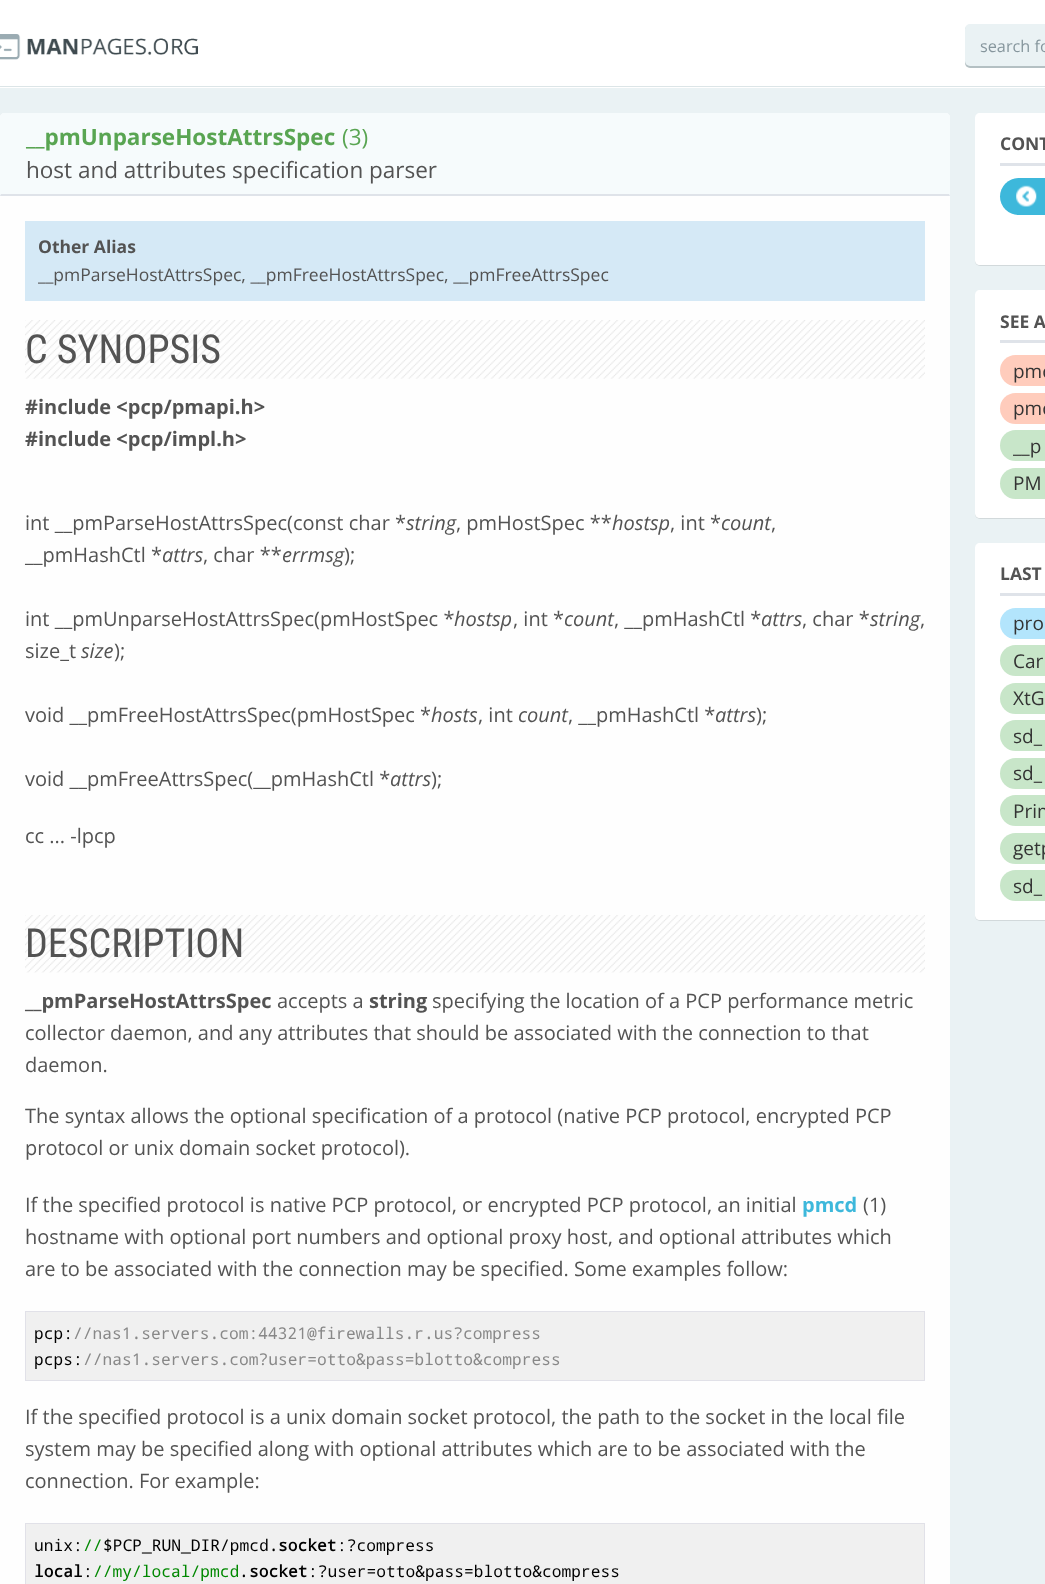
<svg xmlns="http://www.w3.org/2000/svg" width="1045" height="1584">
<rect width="100%" height="100%" fill="#eaf2f4"/>
<rect width="1045" height="88" fill="#fff"/>
<rect y="86" width="1045" height="1" fill="#dce5e7"/>
<image x="0" y="34" width="198" height="26" href="media/1.png"/>
<rect x="965" y="25" width="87" height="43" rx="5" fill="#062f374d" filter="blur(0.5px)"/>
<rect x="965" y="24" width="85" height="42" rx="5" fill="#eaf2f4"/>
<text x="980" y="52" style="font-family:Open Sans;font-size:16.25px;fill:#86969d">search fo</text>
<path d="M5 113h940c3 0 5 2 5 5v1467h-950v-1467c0-3 2-5 5-5z" fill="#fefefe"/>
<path d="M4 113h942c2 0 4 2 4 4v79h-950v-79c0-2 2-4 4-4z" fill="#f6fbfc"/>
<path d="M950 196h-950l1-2h948z" fill="#dfe3e9"/>
<text x="26" y="145" style="font-family:Open Sans;font-size:22.5px;font-weight:bold;fill:#59a552">__pmUnparseHostAttrsSpec</text>
<text x="342" y="145" style="font-family:Open Sans;font-size:22.5px;fill:#59a552">(3)</text>
<text x="26" y="178" style="font-family:Open Sans;font-size:22.5px;fill:#535353">host and attributes specification parser</text>
<rect x="25" y="221" width="900" height="80" fill="#d5e9f6"/>
<text x="38" y="253" style="font-family:Open Sans;font-size:17.5px;font-weight:bold;fill:#535353">Other Alias</text>
<text x="38" y="281" style="font-family:Open Sans;font-size:17.5px;fill:#535353">__pmParseHostAttrsSpec, __pmFreeHostAttrsSpec, __pmFreeAttrsSpec</text>
<image x="25" y="320" width="900" height="59" href="media/2.png"/>
<text x="25" y="363" style="font-family:Roboto Condensed;font-size:40px;fill:#535353">C SYNOPSIS</text>
<text x="25" y="414" style="font-family:Open Sans;font-size:20px;font-weight:bold;fill:#535353">#include &lt;pcp/pmapi.h&gt;</text>
<text x="25" y="446" style="font-family:Open Sans;font-size:20px;font-weight:bold;fill:#535353">#include &lt;pcp/impl.h&gt;</text>
<text x="25" y="530" style="font-family:Open Sans;font-size:20px;fill:#535353">int __pmParseHostAttrsSpec(const char *</text>
<text x="406" y="530" style="font-family:Open Sans;font-size:20px;font-style:italic;fill:#535353">string</text>
<text x="456" y="530" style="font-family:Open Sans;font-size:20px;fill:#535353">, pmHostSpec **</text>
<text x="612" y="530" style="font-family:Open Sans;font-size:20px;font-style:italic;fill:#535353">hostsp</text>
<text x="670" y="530" style="font-family:Open Sans;font-size:20px;fill:#535353">, int *</text>
<text x="721" y="530" style="font-family:Open Sans;font-size:20px;font-style:italic;fill:#535353">count</text>
<text x="771" y="530" style="font-family:Open Sans;font-size:20px;fill:#535353">,</text>
<text x="25" y="562" style="font-family:Open Sans;font-size:20px;fill:#535353">__pmHashCtl *</text>
<text x="162" y="562" style="font-family:Open Sans;font-size:20px;font-style:italic;fill:#535353">attrs</text>
<text x="203" y="562" style="font-family:Open Sans;font-size:20px;fill:#535353">, char **</text>
<text x="282" y="562" style="font-family:Open Sans;font-size:20px;font-style:italic;fill:#535353">errmsg</text>
<text x="344" y="562" style="font-family:Open Sans;font-size:20px;fill:#535353">);</text>
<text x="25" y="626" style="font-family:Open Sans;font-size:20px;fill:#535353">int __pmUnparseHostAttrsSpec(pmHostSpec *</text>
<text x="454" y="626" style="font-family:Open Sans;font-size:20px;font-style:italic;fill:#535353">hostsp</text>
<text x="513" y="626" style="font-family:Open Sans;font-size:20px;fill:#535353">, int *</text>
<text x="564" y="626" style="font-family:Open Sans;font-size:20px;font-style:italic;fill:#535353">count</text>
<text x="614" y="626" style="font-family:Open Sans;font-size:20px;fill:#535353">, __pmHashCtl *</text>
<text x="761" y="626" style="font-family:Open Sans;font-size:20px;font-style:italic;fill:#535353">attrs</text>
<text x="802" y="626" style="font-family:Open Sans;font-size:20px;fill:#535353">, char *</text>
<text x="870" y="626" style="font-family:Open Sans;font-size:20px;font-style:italic;fill:#535353">string</text>
<text x="920" y="626" style="font-family:Open Sans;font-size:20px;fill:#535353">,</text>
<text x="25" y="658" style="font-family:Open Sans;font-size:20px;fill:#535353">size_t</text>
<text x="81" y="658" style="font-family:Open Sans;font-size:20px;font-style:italic;fill:#535353">size</text>
<text x="114" y="658" style="font-family:Open Sans;font-size:20px;fill:#535353">);</text>
<text x="25" y="722" style="font-family:Open Sans;font-size:20px;fill:#535353">void __pmFreeHostAttrsSpec(pmHostSpec *</text>
<text x="431" y="722" style="font-family:Open Sans;font-size:20px;font-style:italic;fill:#535353">hosts</text>
<text x="478" y="722" style="font-family:Open Sans;font-size:20px;fill:#535353">, int</text>
<text x="518" y="722" style="font-family:Open Sans;font-size:20px;font-style:italic;fill:#535353">count</text>
<text x="568" y="722" style="font-family:Open Sans;font-size:20px;fill:#535353">, __pmHashCtl *</text>
<text x="715" y="722" style="font-family:Open Sans;font-size:20px;font-style:italic;fill:#535353">attrs</text>
<text x="756" y="722" style="font-family:Open Sans;font-size:20px;fill:#535353">);</text>
<text x="25" y="786" style="font-family:Open Sans;font-size:20px;fill:#535353">void __pmFreeAttrsSpec(__pmHashCtl *</text>
<text x="390" y="786" style="font-family:Open Sans;font-size:20px;font-style:italic;fill:#535353">attrs</text>
<text x="431" y="786" style="font-family:Open Sans;font-size:20px;fill:#535353">);</text>
<text x="25" y="843" style="font-family:Open Sans;font-size:20px;fill:#535353">cc ... -lpcp</text>
<image x="25" y="915" width="900" height="58" href="media/3.png"/>
<text x="25" y="957" style="font-family:Roboto Condensed;font-size:40px;fill:#535353">DESCRIPTION</text>
<text x="25" y="1008" style="font-family:Open Sans;font-size:20px;font-weight:bold;fill:#535353">__pmParseHostAttrsSpec</text>
<text x="277" y="1008" style="font-family:Open Sans;font-size:20px;fill:#535353">accepts a</text>
<text x="369" y="1008" style="font-family:Open Sans;font-size:20px;font-weight:bold;fill:#535353">string</text>
<text x="432" y="1008" style="font-family:Open Sans;font-size:20px;fill:#535353">specifying the location of a PCP performance metric</text>
<text x="25" y="1040" style="font-family:Open Sans;font-size:20px;fill:#535353">collector daemon, and any attributes that should be associated with the connection to that</text>
<text x="25" y="1072" style="font-family:Open Sans;font-size:20px;fill:#535353">daemon.</text>
<text x="25" y="1123" style="font-family:Open Sans;font-size:20px;fill:#535353">The syntax allows the optional specification of a protocol (native PCP protocol, encrypted PCP</text>
<text x="25" y="1155" style="font-family:Open Sans;font-size:20px;fill:#535353">protocol or unix domain socket protocol).</text>
<text x="25" y="1212" style="font-family:Open Sans;font-size:20px;fill:#535353">If the specified protocol is native PCP protocol, or encrypted PCP protocol, an initial</text>
<text x="802" y="1212" style="font-family:Open Sans;font-size:20px;font-weight:bold;fill:#3db8db">pmcd</text>
<text x="863" y="1212" style="font-family:Open Sans;font-size:20px;fill:#535353">(1)</text>
<text x="25" y="1244" style="font-family:Open Sans;font-size:20px;fill:#535353">hostname with optional port numbers and optional proxy host, and optional attributes which</text>
<text x="25" y="1276" style="font-family:Open Sans;font-size:20px;fill:#535353">are to be associated with the connection may be specified. Some examples follow:</text>
<rect x="25.5" y="1311.5" width="899" height="69" fill="#f0f0f0" stroke="#e1e1e8"/>
<text x="34" y="1339" style="font-family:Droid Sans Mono;font-size:16.25px;fill:#000">pcp:</text>
<text x="73" y="1339" style="font-family:Droid Sans Mono;font-size:16.25px;fill:#888">//nas1.servers.com:44321@firewalls.r.us?compress</text>
<text x="34" y="1365" style="font-family:Droid Sans Mono;font-size:16.25px;fill:#000">pcps:</text>
<text x="83" y="1365" style="font-family:Droid Sans Mono;font-size:16.25px;fill:#888">//nas1.servers.com?user=otto&amp;pass=blotto&amp;compress</text>
<text x="25" y="1424" style="font-family:Open Sans;font-size:20px;fill:#535353">If the specified protocol is a unix domain socket protocol, the path to the socket in the local file</text>
<text x="25" y="1456" style="font-family:Open Sans;font-size:20px;fill:#535353">system may be specified along with optional attributes which are to be associated with the</text>
<text x="25" y="1488" style="font-family:Open Sans;font-size:20px;fill:#535353">connection. For example:</text>
<rect x="25.5" y="1523.5" width="899" height="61" fill="#f0f0f0" stroke="#e1e1e8"/>
<text x="34" y="1551" style="font-family:Droid Sans Mono;font-size:16.25px;fill:#000">unix:</text>
<text x="83" y="1551" style="font-family:Droid Sans Mono;font-size:16.25px;fill:#080">//</text>
<text x="103" y="1551" style="font-family:Droid Sans Mono;font-size:16.25px;fill:#000">$PCP_RUN_DIR/pmcd.</text>
<text x="278" y="1551" style="font-family:Droid Sans Mono;font-size:16.25px;font-weight:bold;fill:#000">socket</text>
<text x="337" y="1551" style="font-family:Droid Sans Mono;font-size:16.25px;fill:#000">:?compress</text>
<text x="34" y="1577" style="font-family:Droid Sans Mono;font-size:16.25px;font-weight:bold;fill:#000">local</text>
<text x="83" y="1577" style="font-family:Droid Sans Mono;font-size:16.25px;fill:#000">:</text>
<text x="93" y="1577" style="font-family:Droid Sans Mono;font-size:16.25px;fill:#080">//my/local/pmcd</text>
<text x="239" y="1577" style="font-family:Droid Sans Mono;font-size:16.25px;fill:#000">.</text>
<text x="249" y="1577" style="font-family:Droid Sans Mono;font-size:16.25px;font-weight:bold;fill:#000">socket</text>
<text x="308" y="1577" style="font-family:Droid Sans Mono;font-size:16.25px;fill:#000">:?user=otto&amp;pass=blotto&amp;compress</text>
<rect x="975" y="114" width="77" height="152" rx="5" fill="#0000001a" filter="blur(0.5px)"/>
<path d="M980 113h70v152h-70c-3 0-5-2-5-5v-142c0-3 2-5 5-5z" fill="#fff"/>
<rect x="1000" y="163" width="45" height="3" fill="#dfe3e9"/>
<text x="1000" y="150" style="font-family:Open Sans;font-size:17.5px;font-weight:bold;fill:#535353">CONT</text>
<rect x="1000" y="178" width="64" height="37" rx="18.5" fill="#3db8db"/>
<image x="1016" y="185" width="21" height="22" href="media/4.png"/>
<rect x="975" y="291" width="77" height="228" rx="5" fill="#0000001a" filter="blur(0.5px)"/>
<path d="M980 290h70v228h-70c-3 0-5-2-5-5v-218c0-3 2-5 5-5z" fill="#fff"/>
<rect x="1000" y="340" width="45" height="3" fill="#dfe3e9"/>
<text x="1000" y="328" style="font-family:Open Sans;font-size:17.5px;font-weight:bold;fill:#535353">SEE A</text>
<rect x="1000" y="355" width="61" height="31" rx="15.5" fill="#ffccbc"/>
<text x="1013" y="378" style="font-family:Open Sans;font-size:19px;fill:#333">pmc</text>
<rect x="1000" y="393" width="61" height="31" rx="15.5" fill="#ffccbc"/>
<text x="1013" y="415" style="font-family:Open Sans;font-size:19px;fill:#333">pmc</text>
<rect x="1000" y="430" width="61" height="31" rx="15.5" fill="#c8e6c9"/>
<text x="1013" y="453" style="font-family:Open Sans;font-size:19px;fill:#333">__p</text>
<rect x="1000" y="468" width="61" height="31" rx="15.5" fill="#c8e6c9"/>
<text x="1013" y="490" style="font-family:Open Sans;font-size:19px;fill:#333">PM</text>
<rect x="975" y="544" width="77" height="377" rx="5" fill="#0000001a" filter="blur(0.5px)"/>
<path d="M980 543h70v377h-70c-3 0-5-2-5-5v-367c0-3 2-5 5-5z" fill="#fff"/>
<rect x="1000" y="593" width="45" height="3" fill="#dfe3e9"/>
<text x="1000" y="580" style="font-family:Open Sans;font-size:17.5px;font-weight:bold;fill:#535353">LAST</text>
<rect x="1000" y="608" width="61" height="31" rx="15.5" fill="#b3e5fc"/>
<text x="1013" y="630" style="font-family:Open Sans;font-size:19px;fill:#333">pro</text>
<rect x="1000" y="645" width="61" height="31" rx="15.5" fill="#c8e6c9"/>
<text x="1013" y="668" style="font-family:Open Sans;font-size:19px;fill:#333">Car</text>
<rect x="1000" y="683" width="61" height="31" rx="15.5" fill="#c8e6c9"/>
<text x="1013" y="705" style="font-family:Open Sans;font-size:19px;fill:#333">XtG</text>
<rect x="1000" y="720" width="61" height="31" rx="15.5" fill="#c8e6c9"/>
<text x="1013" y="743" style="font-family:Open Sans;font-size:19px;fill:#333">sd_</text>
<rect x="1000" y="758" width="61" height="31" rx="15.5" fill="#c8e6c9"/>
<text x="1013" y="780" style="font-family:Open Sans;font-size:19px;fill:#333">sd_</text>
<rect x="1000" y="795" width="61" height="31" rx="15.5" fill="#c8e6c9"/>
<text x="1013" y="818" style="font-family:Open Sans;font-size:19px;fill:#333">Prim</text>
<rect x="1000" y="833" width="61" height="31" rx="15.5" fill="#c8e6c9"/>
<text x="1013" y="855" style="font-family:Open Sans;font-size:19px;fill:#333">getp</text>
<rect x="1000" y="870" width="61" height="31" rx="15.5" fill="#c8e6c9"/>
<text x="1013" y="893" style="font-family:Open Sans;font-size:19px;fill:#333">sd_</text>
</svg>
